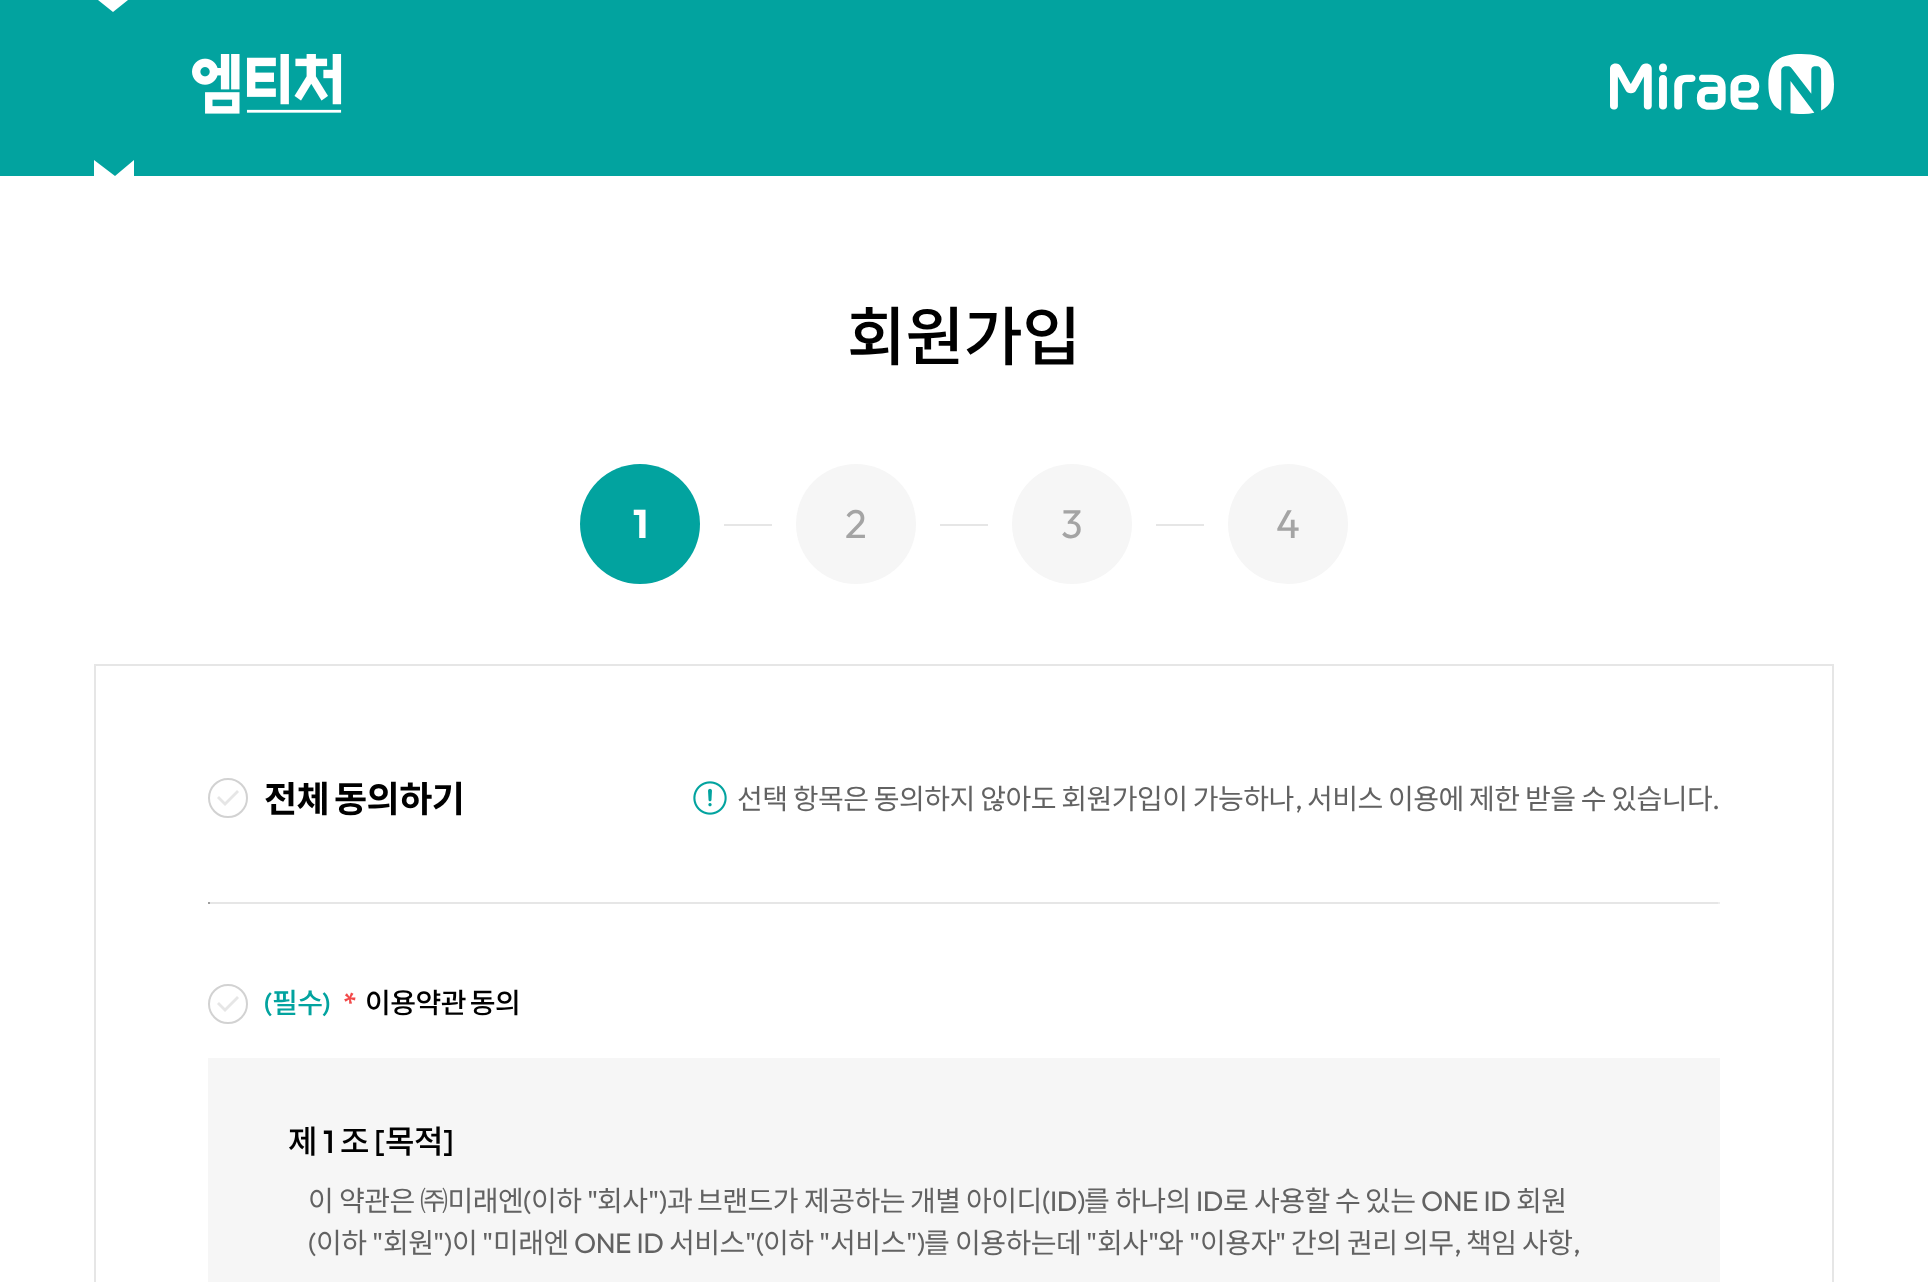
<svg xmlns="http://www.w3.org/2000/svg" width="1928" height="1282">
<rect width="100%" height="100%" fill="#fff"/>
<rect width="1928" height="176" fill="#02a39f"/>
<path d="M98 0l15 12l15-12z" fill="#fff"/>
<image x="192" y="54" width="150" height="60" href="media/1.png"/>
<image x="1610" y="54" width="224" height="60" href="media/2.png"/>
<path d="M94 176v-16l21 16l19-16v16z" fill="#fff"/>
<text x="847" y="360" style="font-family:Noto Sans KR;font-size:64px;font-weight:500;letter-spacing:-0.5px;fill:#000">회원가입</text>
<circle cx="640" cy="524" r="60" fill="#02a39f"/>
<text x="633" y="538" style="font-family:Outfit;font-size:40px;font-weight:bold;letter-spacing:-0.5px;fill:#fff">1</text>
<rect x="724" y="524" width="48" height="2" fill="#e6e6e6"/>
<circle cx="856" cy="524" r="60" fill="#f6f6f6"/>
<text x="845" y="538" style="font-family:Outfit;font-size:40px;letter-spacing:-0.5px;fill:#a4a4a4">2</text>
<rect x="940" y="524" width="48" height="2" fill="#e6e6e6"/>
<circle cx="1072" cy="524" r="60" fill="#f6f6f6"/>
<text x="1061" y="538" style="font-family:Outfit;font-size:40px;letter-spacing:-0.5px;fill:#a4a4a4">3</text>
<rect x="1156" y="524" width="48" height="2" fill="#e6e6e6"/>
<circle cx="1288" cy="524" r="60" fill="#f6f6f6"/>
<text x="1276" y="538" style="font-family:Outfit;font-size:40px;letter-spacing:-0.5px;fill:#a4a4a4">4</text>
<rect x="95" y="665" width="1738" height="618" fill="none" stroke="#e6e6e6" stroke-width="2"/>
<circle cx="228" cy="798" r="19" fill="none" stroke="#d2d2d2" stroke-width="2"/>
<text x="264" y="812" word-spacing="-3" style="font-family:Noto Sans KR;font-size:36px;font-weight:bold;letter-spacing:-0.5px;fill:#000">전체 동의하기</text>
<path d="M239 792l-14 14l-8-8l2-2l6 6l12-12z" fill="#e6e6e6" fill-rule="evenodd"/>
<image x="693" y="781" width="34" height="34" href="media/3.png"/>
<text x="737" y="809" word-spacing="-0.5" style="font-family:Noto Sans KR;font-size:28px;letter-spacing:-0.5px;fill:#626262">선택 항목은 동의하지 않아도 회원가입이 가능하나</text>
<text x="1295" y="809" style="font-family:Outfit;font-size:28px;letter-spacing:-0.5px;fill:#626262">,</text>
<text x="1307" y="809" word-spacing="-0.5" style="font-family:Noto Sans KR;font-size:28px;letter-spacing:-0.5px;fill:#626262">서비스 이용에 제한 받을 수 있습니다</text>
<text x="1712" y="809" style="font-family:Outfit;font-size:28px;letter-spacing:-0.5px;fill:#626262">.</text>
<rect x="208" y="902" width="1512" height="2" fill="#e6e6e6"/>
<rect x="1718" y="902" width="2" height="2" fill="#eee"/>
<rect x="208" y="902" width="2" height="2" fill="#9f9f9f"/>
<circle cx="228" cy="1004" r="19" fill="none" stroke="#d2d2d2" stroke-width="2"/>
<text x="264" y="1013" style="font-family:Outfit;font-size:28px;font-weight:500;letter-spacing:-0.5px;fill:#02a39f">(</text>
<text x="272" y="1013" style="font-family:Noto Sans KR;font-size:28px;font-weight:500;letter-spacing:-0.5px;fill:#02a39f">필수</text>
<text x="322" y="1013" style="font-family:Outfit;font-size:28px;font-weight:500;letter-spacing:-0.5px;fill:#02a39f">)</text>
<text x="343" y="1013" style="font-family:Outfit;font-size:28px;font-weight:500;letter-spacing:-0.5px;fill:#f24a4a">*</text>
<text x="365" y="1013" word-spacing="-2" style="font-family:Noto Sans KR;font-size:28px;font-weight:500;letter-spacing:-0.5px;fill:#000">이용약관 동의</text>
<path d="M239 998l-14 14l-8-8l2-2l6 6l12-12z" fill="#e6e6e6" fill-rule="evenodd"/>
<rect x="208" y="1058" width="1512" height="224" fill="#f6f6f6"/>
<text x="288" y="1153" style="font-family:Noto Sans KR;font-size:32px;font-weight:500;letter-spacing:-0.5px;fill:#000">제</text>
<text x="323" y="1153" style="font-family:Outfit;font-size:32px;font-weight:500;letter-spacing:-0.5px;fill:#000">1</text>
<text x="340" y="1153" style="font-family:Noto Sans KR;font-size:32px;font-weight:500;letter-spacing:-0.5px;fill:#000">조</text>
<text x="374" y="1153" style="font-family:Outfit;font-size:32px;font-weight:500;letter-spacing:-0.5px;fill:#000">[</text>
<text x="385" y="1153" style="font-family:Noto Sans KR;font-size:32px;font-weight:500;letter-spacing:-0.5px;fill:#000">목적</text>
<text x="443" y="1153" style="font-family:Outfit;font-size:32px;font-weight:500;letter-spacing:-0.5px;fill:#000">]</text>
<text x="308" y="1211" style="font-family:Noto Sans KR;font-size:28px;letter-spacing:-0.5px;fill:#626262">이</text>
<text x="339" y="1211" style="font-family:Noto Sans KR;font-size:28px;letter-spacing:-0.5px;fill:#626262">약관은</text>
<text x="420" y="1211" style="font-family:Noto Sans KR;font-size:28px;letter-spacing:-0.5px;fill:#626262">㈜미래엔</text>
<text x="523" y="1211" style="font-family:Outfit;font-size:28px;letter-spacing:-0.5px;fill:#626262">(</text>
<text x="531" y="1211" style="font-family:Noto Sans KR;font-size:28px;letter-spacing:-0.5px;fill:#626262">이하</text>
<text x="587" y="1211" style="font-family:Outfit;font-size:28px;letter-spacing:-0.5px;fill:#626262">"</text>
<text x="597" y="1211" style="font-family:Noto Sans KR;font-size:28px;letter-spacing:-0.5px;fill:#626262">회사</text>
<text x="648" y="1211" style="font-family:Outfit;font-size:28px;letter-spacing:-0.5px;fill:#626262">")</text>
<text x="667" y="1211" style="font-family:Noto Sans KR;font-size:28px;letter-spacing:-0.5px;fill:#626262">과</text>
<text x="697" y="1211" style="font-family:Noto Sans KR;font-size:28px;letter-spacing:-0.5px;fill:#626262">브랜드가</text>
<text x="804" y="1211" style="font-family:Noto Sans KR;font-size:28px;letter-spacing:-0.5px;fill:#626262">제공하는</text>
<text x="910" y="1211" style="font-family:Noto Sans KR;font-size:28px;letter-spacing:-0.5px;fill:#626262">개별</text>
<text x="966" y="1211" style="font-family:Noto Sans KR;font-size:28px;letter-spacing:-0.5px;fill:#626262">아이디</text>
<text x="1042" y="1211" style="font-family:Outfit;font-size:28px;letter-spacing:-0.5px;fill:#626262">(ID)</text>
<text x="1084" y="1211" style="font-family:Noto Sans KR;font-size:28px;letter-spacing:-0.5px;fill:#626262">를</text>
<text x="1115" y="1211" style="font-family:Noto Sans KR;font-size:28px;letter-spacing:-0.5px;fill:#626262">하나의</text>
<text x="1196" y="1211" style="font-family:Outfit;font-size:28px;letter-spacing:-0.5px;fill:#626262">ID</text>
<text x="1223" y="1211" style="font-family:Noto Sans KR;font-size:28px;letter-spacing:-0.5px;fill:#626262">로</text>
<text x="1254" y="1211" style="font-family:Noto Sans KR;font-size:28px;letter-spacing:-0.5px;fill:#626262">사용할</text>
<text x="1335" y="1211" style="font-family:Noto Sans KR;font-size:28px;letter-spacing:-0.5px;fill:#626262">수</text>
<text x="1365" y="1211" style="font-family:Noto Sans KR;font-size:28px;letter-spacing:-0.5px;fill:#626262">있는</text>
<text x="1421" y="1211" style="font-family:Outfit;font-size:28px;letter-spacing:-0.5px;fill:#626262">ONE ID</text>
<text x="1516" y="1211" style="font-family:Noto Sans KR;font-size:28px;letter-spacing:-0.5px;fill:#626262">회원</text>
<text x="308" y="1253" style="font-family:Outfit;font-size:28px;letter-spacing:-0.5px;fill:#626262">(</text>
<text x="316" y="1253" style="font-family:Noto Sans KR;font-size:28px;letter-spacing:-0.5px;fill:#626262">이하</text>
<text x="372" y="1253" style="font-family:Outfit;font-size:28px;letter-spacing:-0.5px;fill:#626262">"</text>
<text x="383" y="1253" style="font-family:Noto Sans KR;font-size:28px;letter-spacing:-0.5px;fill:#626262">회원</text>
<text x="433" y="1253" style="font-family:Outfit;font-size:28px;letter-spacing:-0.5px;fill:#626262">")</text>
<text x="452" y="1253" style="font-family:Noto Sans KR;font-size:28px;letter-spacing:-0.5px;fill:#626262">이</text>
<text x="482" y="1253" style="font-family:Outfit;font-size:28px;letter-spacing:-0.5px;fill:#626262">"</text>
<text x="493" y="1253" style="font-family:Noto Sans KR;font-size:28px;letter-spacing:-0.5px;fill:#626262">미래엔</text>
<text x="574" y="1253" style="font-family:Outfit;font-size:28px;letter-spacing:-0.5px;fill:#626262">ONE ID</text>
<text x="669" y="1253" style="font-family:Noto Sans KR;font-size:28px;letter-spacing:-0.5px;fill:#626262">서비스</text>
<text x="745" y="1253" style="font-family:Outfit;font-size:28px;letter-spacing:-0.5px;fill:#626262">"(</text>
<text x="763" y="1253" style="font-family:Noto Sans KR;font-size:28px;letter-spacing:-0.5px;fill:#626262">이하</text>
<text x="819" y="1253" style="font-family:Outfit;font-size:28px;letter-spacing:-0.5px;fill:#626262">"</text>
<text x="830" y="1253" style="font-family:Noto Sans KR;font-size:28px;letter-spacing:-0.5px;fill:#626262">서비스</text>
<text x="906" y="1253" style="font-family:Outfit;font-size:28px;letter-spacing:-0.5px;fill:#626262">")</text>
<text x="924" y="1253" style="font-family:Noto Sans KR;font-size:28px;letter-spacing:-0.5px;fill:#626262">를</text>
<text x="955" y="1253" style="font-family:Noto Sans KR;font-size:28px;letter-spacing:-0.5px;fill:#626262">이용하는데</text>
<text x="1086" y="1253" style="font-family:Outfit;font-size:28px;letter-spacing:-0.5px;fill:#626262">"</text>
<text x="1097" y="1253" style="font-family:Noto Sans KR;font-size:28px;letter-spacing:-0.5px;fill:#626262">회사</text>
<text x="1148" y="1253" style="font-family:Outfit;font-size:28px;letter-spacing:-0.5px;fill:#626262">"</text>
<text x="1158" y="1253" style="font-family:Noto Sans KR;font-size:28px;letter-spacing:-0.5px;fill:#626262">와</text>
<text x="1189" y="1253" style="font-family:Outfit;font-size:28px;letter-spacing:-0.5px;fill:#626262">"</text>
<text x="1200" y="1253" style="font-family:Noto Sans KR;font-size:28px;letter-spacing:-0.5px;fill:#626262">이용자</text>
<text x="1275" y="1253" style="font-family:Outfit;font-size:28px;letter-spacing:-0.5px;fill:#626262">"</text>
<text x="1291" y="1253" style="font-family:Noto Sans KR;font-size:28px;letter-spacing:-0.5px;fill:#626262">간의</text>
<text x="1347" y="1253" style="font-family:Noto Sans KR;font-size:28px;letter-spacing:-0.5px;fill:#626262">권리</text>
<text x="1403" y="1253" style="font-family:Noto Sans KR;font-size:28px;letter-spacing:-0.5px;fill:#626262">의무</text>
<text x="1466" y="1253" style="font-family:Noto Sans KR;font-size:28px;letter-spacing:-0.5px;fill:#626262">책임</text>
<text x="1522" y="1253" style="font-family:Noto Sans KR;font-size:28px;letter-spacing:-0.5px;fill:#626262">사항</text>
<text x="1454" y="1253" style="font-family:Outfit;font-size:28px;letter-spacing:-0.5px;fill:#626262">,</text>
<text x="1573" y="1253" style="font-family:Outfit;font-size:28px;letter-spacing:-0.5px;fill:#626262">,</text>
</svg>
